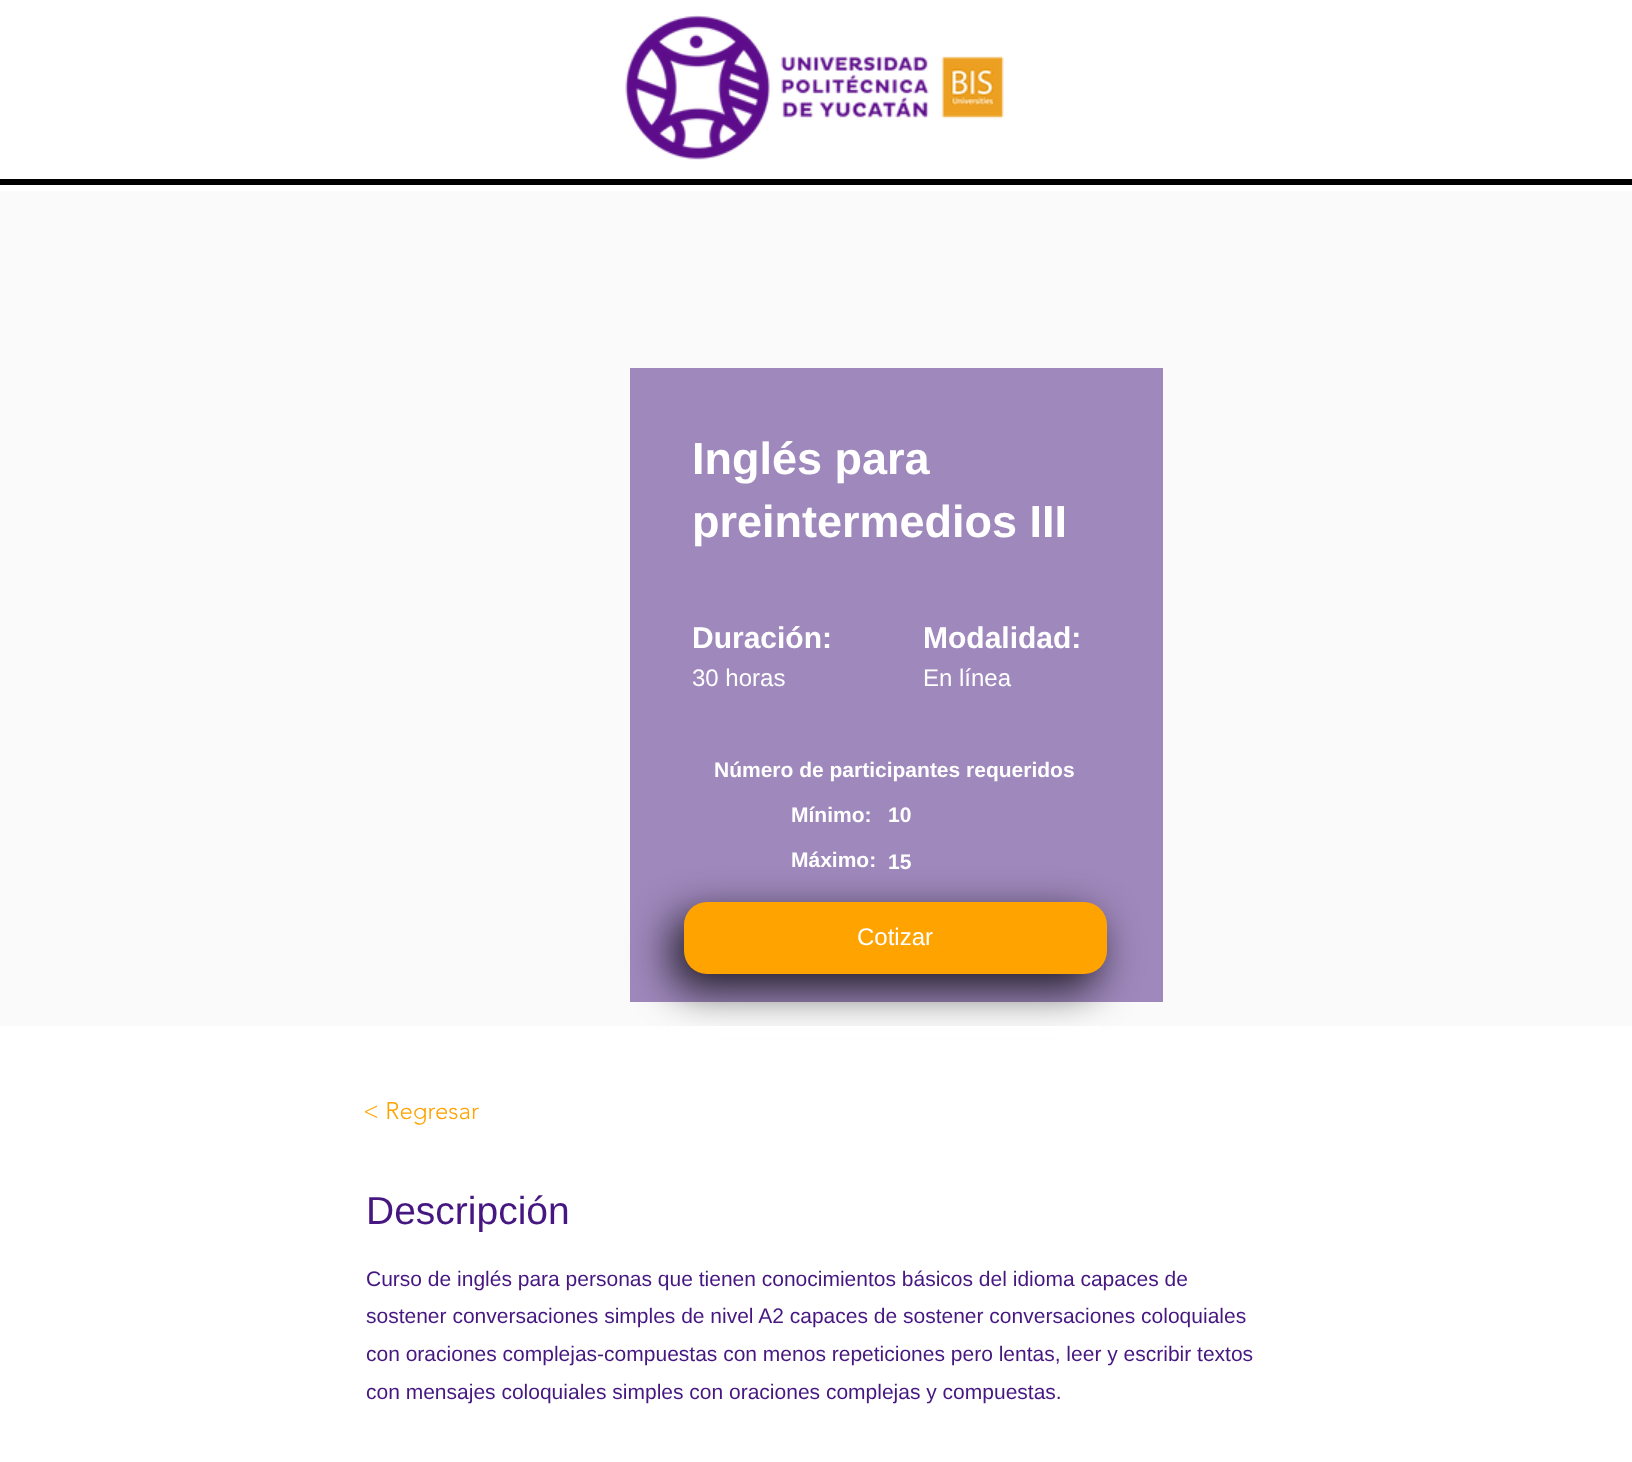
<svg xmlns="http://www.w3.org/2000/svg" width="1632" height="1462">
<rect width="100%" height="100%" fill="#fff"/>
<image x="625" y="15" width="379" height="145" href="media/1.png"/>
<rect y="179" width="1632" height="6" fill="#000"/>
<rect y="191" width="1632" height="835" fill="#fafafa"/>
<rect x="630" y="368" width="533" height="634" fill="#9f88bc"/>
<text x="692" y="474" style="font-family:Liberation Sans;font-size:45px;font-weight:bold;fill:#fff">Inglés para</text>
<text x="692" y="537" style="font-family:Liberation Sans;font-size:45px;font-weight:bold;fill:#fff">preintermedios III</text>
<text x="692" y="648" style="font-family:Liberation Sans;font-size:30px;font-weight:bold;fill:#fff">Duración:</text>
<text x="923" y="648" style="font-family:Liberation Sans;font-size:30px;font-weight:bold;fill:#fff">Modalidad:</text>
<text x="692" y="686" style="font-family:Liberation Sans;font-size:24px;fill:#fff">30 horas</text>
<text x="923" y="686" style="font-family:Liberation Sans;font-size:24px;fill:#fff">En línea</text>
<text x="714" y="777" style="font-family:Liberation Sans;font-size:21px;font-weight:bold;fill:#fff">Número de participantes requeridos</text>
<text x="791" y="822" style="font-family:Liberation Sans;font-size:21px;font-weight:bold;fill:#fff">Mínimo:</text>
<text x="888" y="822" style="font-family:Liberation Sans;font-size:21px;font-weight:bold;fill:#fff">10</text>
<text x="791" y="867" style="font-family:Liberation Sans;font-size:21px;font-weight:bold;fill:#fff">Máximo:</text>
<text x="888" y="869" style="font-family:Liberation Sans;font-size:21px;font-weight:bold;fill:#fff">15</text>
<rect x="672" y="915" width="426" height="75" rx="24" fill="#000000c7" filter="blur(21px)"/>
<rect x="684" y="902" width="423" height="72" rx="23" fill="#ffa300"/>
<text x="857" y="945" style="font-family:Liberation Sans;font-size:24px;fill:#fff">Cotizar</text>
<rect x="670" y="1026" width="430" height="11" fill="#fff"/>
<text x="363" y="1119" style="font-family:'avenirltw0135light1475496';font-size:24px;font-weight:300;fill:#ffa300">&lt; Regresar</text>
<text x="366" y="1224" style="font-family:Liberation Sans;font-size:39px;fill:#461780">Descripción</text>
<text x="366" y="1286" style="font-family:Liberation Sans;font-size:21px;fill:#461780">Curso de inglés para personas que tienen conocimientos básicos del idioma capaces de</text>
<text x="366" y="1323" style="font-family:Liberation Sans;font-size:21px;fill:#461780">sostener conversaciones simples de nivel A2 capaces de sostener conversaciones coloquiales</text>
<text x="366" y="1361" style="font-family:Liberation Sans;font-size:21px;fill:#461780">con oraciones complejas-compuestas con menos repeticiones pero lentas, leer y escribir textos</text>
<text x="366" y="1399" style="font-family:Liberation Sans;font-size:21px;fill:#461780">con mensajes coloquiales simples con oraciones complejas y compuestas.</text>
</svg>
